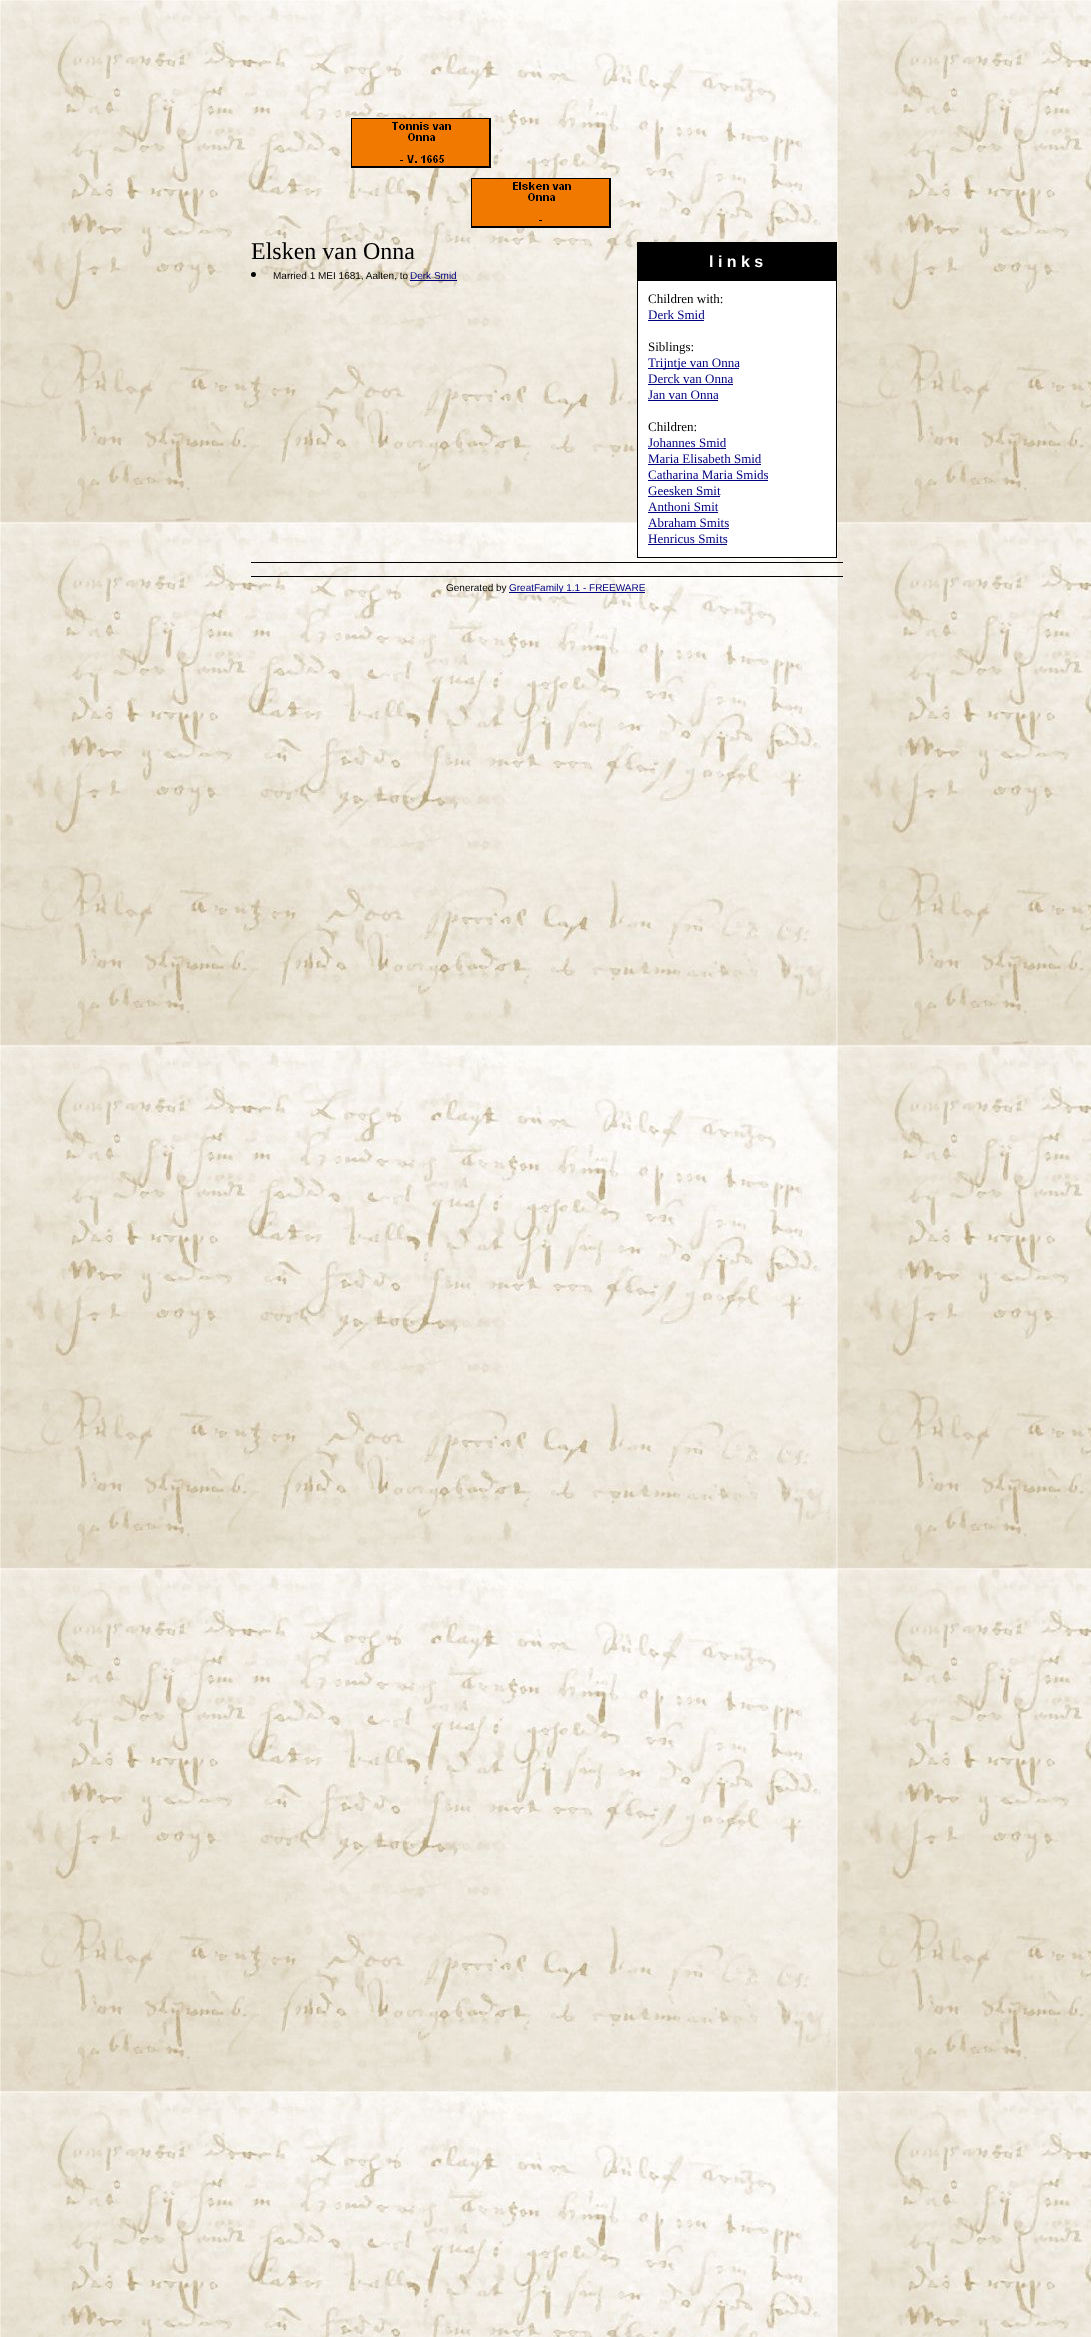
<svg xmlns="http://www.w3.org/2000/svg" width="1091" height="2337">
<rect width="100%" height="100%" fill="#fff"/>
<image x="0" y="0" width="1091" height="2337" href="media/1.png"/>
<image x="351" y="118" width="140" height="50" href="media/2.png"/>
<image x="471" y="178" width="140" height="50" href="media/3.png"/>
<text x="251" y="259" style="font-family:Liberation Serif;font-size:24px;fill:#000">Elsken van Onna</text>
<circle cx="253.5" cy="274.5" r="2.5" fill="#000"/>
<text x="273" y="279" style="font-family:Liberation Sans;font-size:10px;fill:#000">Married 1 MEI 1681, Aalten, to</text>
<text x="410" y="279" style="font-family:Liberation Sans;font-size:10px;fill:#000080">Derk Smid</text>
<rect x="410" y="280" width="47" height="1" fill="#000080"/>
<rect x="251" y="562" width="592" height="1" fill="#000"/>
<rect x="637" y="242" width="200" height="316" fill="#000"/>
<text x="709" y="267" style="font-family:Liberation Sans;font-size:16px;font-weight:bold;fill:#fff">l i n k s</text>
<rect x="638" y="281" width="198" height="276" fill="#fff"/>
<text x="648" y="303" style="font-family:Liberation Serif;font-size:13px;fill:#000">Children with:</text>
<text x="648" y="319" style="font-family:Liberation Serif;font-size:13px;fill:#000080">Derk Smid</text>
<rect x="648" y="320" width="56" height="1" fill="#000080"/>
<text x="648" y="351" style="font-family:Liberation Serif;font-size:13px;fill:#000">Siblings:</text>
<rect x="648" y="368" width="91" height="1" fill="#000080"/>
<text x="648" y="367" style="font-family:Liberation Serif;font-size:13px;fill:#000080">Trijntje van Onna</text>
<text x="648" y="383" style="font-family:Liberation Serif;font-size:13px;fill:#000080">Derck van Onna</text>
<rect x="648" y="384" width="85" height="1" fill="#000080"/>
<text x="648" y="399" style="font-family:Liberation Serif;font-size:13px;fill:#000080">Jan van Onna</text>
<rect x="648" y="400" width="70" height="1" fill="#000080"/>
<text x="648" y="431" style="font-family:Liberation Serif;font-size:13px;fill:#000">Children:</text>
<text x="648" y="447" style="font-family:Liberation Serif;font-size:13px;fill:#000080">Johannes Smid</text>
<rect x="648" y="448" width="78" height="1" fill="#000080"/>
<text x="648" y="463" style="font-family:Liberation Serif;font-size:13px;fill:#000080">Maria Elisabeth Smid</text>
<rect x="648" y="464" width="113" height="1" fill="#000080"/>
<text x="648" y="479" style="font-family:Liberation Serif;font-size:13px;fill:#000080">Catharina Maria Smids</text>
<rect x="648" y="480" width="120" height="1" fill="#000080"/>
<text x="648" y="495" style="font-family:Liberation Serif;font-size:13px;fill:#000080">Geesken Smit</text>
<rect x="648" y="496" width="72" height="1" fill="#000080"/>
<text x="648" y="511" style="font-family:Liberation Serif;font-size:13px;fill:#000080">Anthoni Smit</text>
<rect x="648" y="512" width="70" height="1" fill="#000080"/>
<text x="648" y="527" style="font-family:Liberation Serif;font-size:13px;fill:#000080">Abraham Smits</text>
<rect x="648" y="528" width="81" height="1" fill="#000080"/>
<text x="648" y="543" style="font-family:Liberation Serif;font-size:13px;fill:#000080">Henricus Smits</text>
<rect x="648" y="544" width="79" height="1" fill="#000080"/>
<rect x="251" y="576" width="592" height="1" fill="#000"/>
<text x="446" y="591" style="font-family:Liberation Sans;font-size:10px;fill:#000">Generated by</text>
<rect x="509" y="592" width="136" height="1" fill="#000080"/>
<text x="509" y="591" style="font-family:Liberation Sans;font-size:10px;fill:#000080">GreatFamily 1.1 - FREEWARE</text>
</svg>
